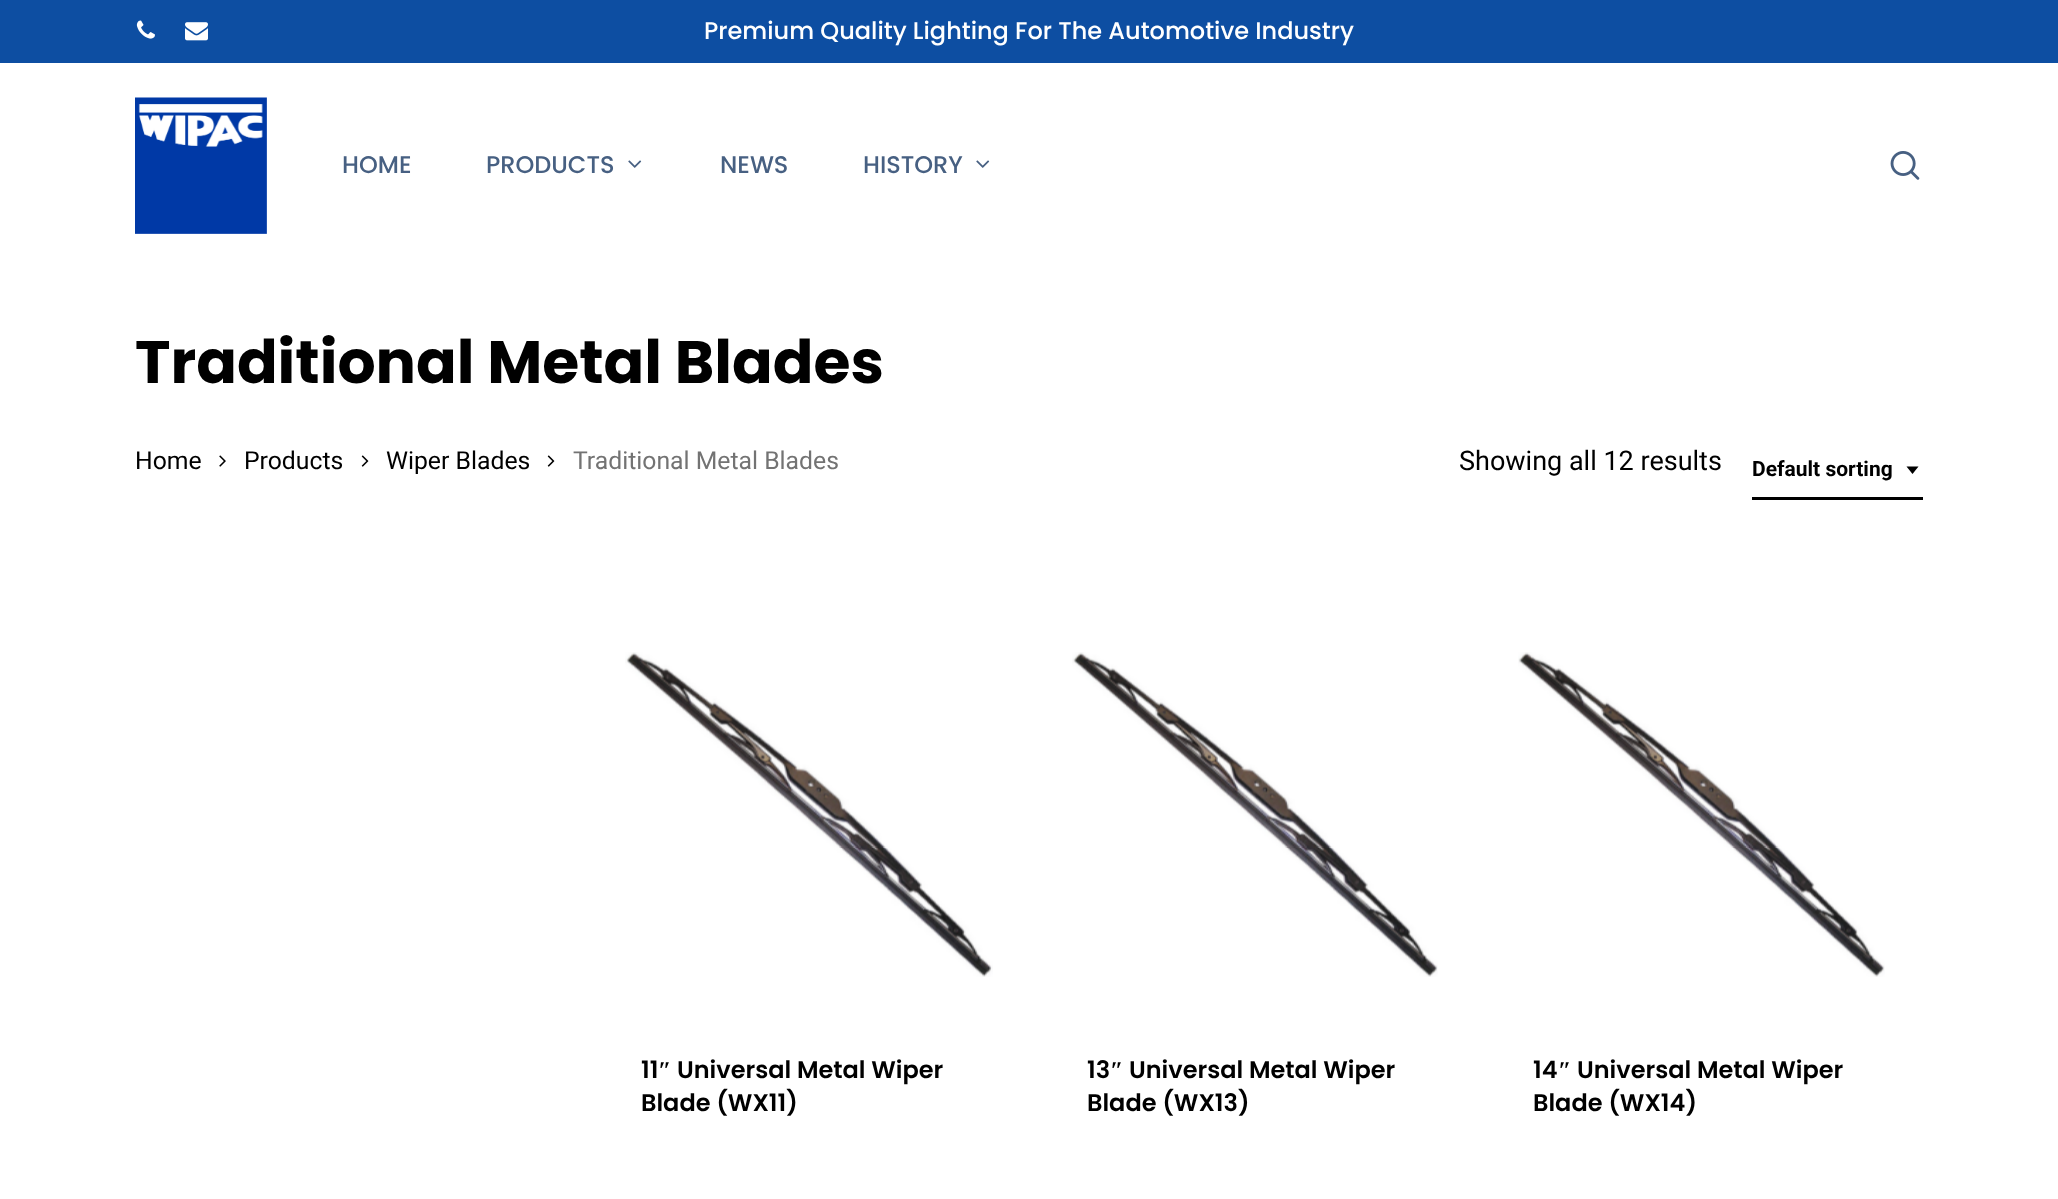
<svg xmlns="http://www.w3.org/2000/svg" width="2058" height="1199">
<rect width="100%" height="100%" fill="#fff"/>
<rect width="2058" height="63" fill="#0d4ea2"/>
<image x="136" y="20" width="19" height="19" href="media/1.png"/>
<image x="185" y="22" width="23" height="19" href="media/2.png"/>
<text x="704" y="39" style="font-family:Poppins;font-size:24px;font-weight:500;fill:#fff">Premium Quality Lighting For The Automotive Industry</text>
<image x="135" y="97" width="132" height="137" href="media/3.png"/>
<text x="342" y="173" style="font-family:Poppins;font-size:24px;font-weight:500;fill:#476082">HOME</text>
<text x="486" y="173" style="font-family:Poppins;font-size:24px;font-weight:500;fill:#476082">PRODUCTS</text>
<image x="628" y="160" width="14" height="8" href="media/4.png"/>
<text x="720" y="173" style="font-family:Poppins;font-size:24px;font-weight:500;fill:#476082">NEWS</text>
<text x="863" y="173" style="font-family:Poppins;font-size:24px;font-weight:500;fill:#476082">HISTORY</text>
<image x="976" y="160" width="14" height="8" href="media/4.png"/>
<image x="1890" y="151" width="30" height="29" href="media/5.png"/>
<text x="135" y="383" style="font-family:Poppins;font-size:60px;font-weight:bold;fill:#000">Traditional Metal Blades</text>
<text x="135" y="469" style="font-family:Roboto;font-size:24.75px;fill:#000">Home</text>
<image x="219" y="455" width="7" height="12" href="media/6.png"/>
<text x="244" y="469" style="font-family:Roboto;font-size:24.75px;fill:#000">Products</text>
<image x="361" y="455" width="8" height="12" href="media/7.png"/>
<text x="386" y="469" style="font-family:Roboto;font-size:24.75px;fill:#000">Wiper Blades</text>
<image x="547" y="455" width="8" height="12" href="media/7.png"/>
<text x="573" y="469" style="font-family:Roboto;font-size:24.75px;fill:#737373">Traditional Metal Blades</text>
<text x="1459" y="470" style="font-family:Roboto;font-size:27px;fill:#000">Showing all 12 results</text>
<rect x="1752" y="497" width="171" height="3" fill="#000"/>
<text x="1752" y="476" style="font-family:Roboto;font-size:21px;font-weight:bold;fill:#000">Default sorting</text>
<path d="M1906.5 466.5h12l-6 7.5z" fill="#000"/>
<image x="625" y="652" width="368" height="325" href="media/8.png"/>
<text x="641" y="1078" style="font-family:Poppins;font-size:24px;font-weight:600;fill:#000">11</text>
<text x="658" y="1078" style="font-family:Liberation Serif;font-size:24px;font-weight:bold;fill:#000">″</text>
<text x="677" y="1078" style="font-family:Poppins;font-size:24px;font-weight:600;fill:#000">Universal Metal Wiper</text>
<text x="641" y="1111" style="font-family:Poppins;font-size:24px;font-weight:600;fill:#000">Blade (WX11)</text>
<image x="1072" y="652" width="366" height="325" href="media/9.png"/>
<text x="1087" y="1078" style="font-family:Poppins;font-size:24px;font-weight:600;fill:#000">13</text>
<text x="1110" y="1078" style="font-family:Liberation Serif;font-size:24px;font-weight:bold;fill:#000">″</text>
<text x="1129" y="1078" style="font-family:Poppins;font-size:24px;font-weight:600;fill:#000">Universal Metal Wiper</text>
<text x="1087" y="1111" style="font-family:Poppins;font-size:24px;font-weight:600;fill:#000">Blade (WX13)</text>
<image x="1518" y="652" width="367" height="325" href="media/10.png"/>
<text x="1533" y="1078" style="font-family:Poppins;font-size:24px;font-weight:600;fill:#000">14</text>
<text x="1558" y="1078" style="font-family:Liberation Serif;font-size:24px;font-weight:bold;fill:#000">″</text>
<text x="1577" y="1078" style="font-family:Poppins;font-size:24px;font-weight:600;fill:#000">Universal Metal Wiper</text>
<text x="1533" y="1111" style="font-family:Poppins;font-size:24px;font-weight:600;fill:#000">Blade (WX14)</text>
</svg>
